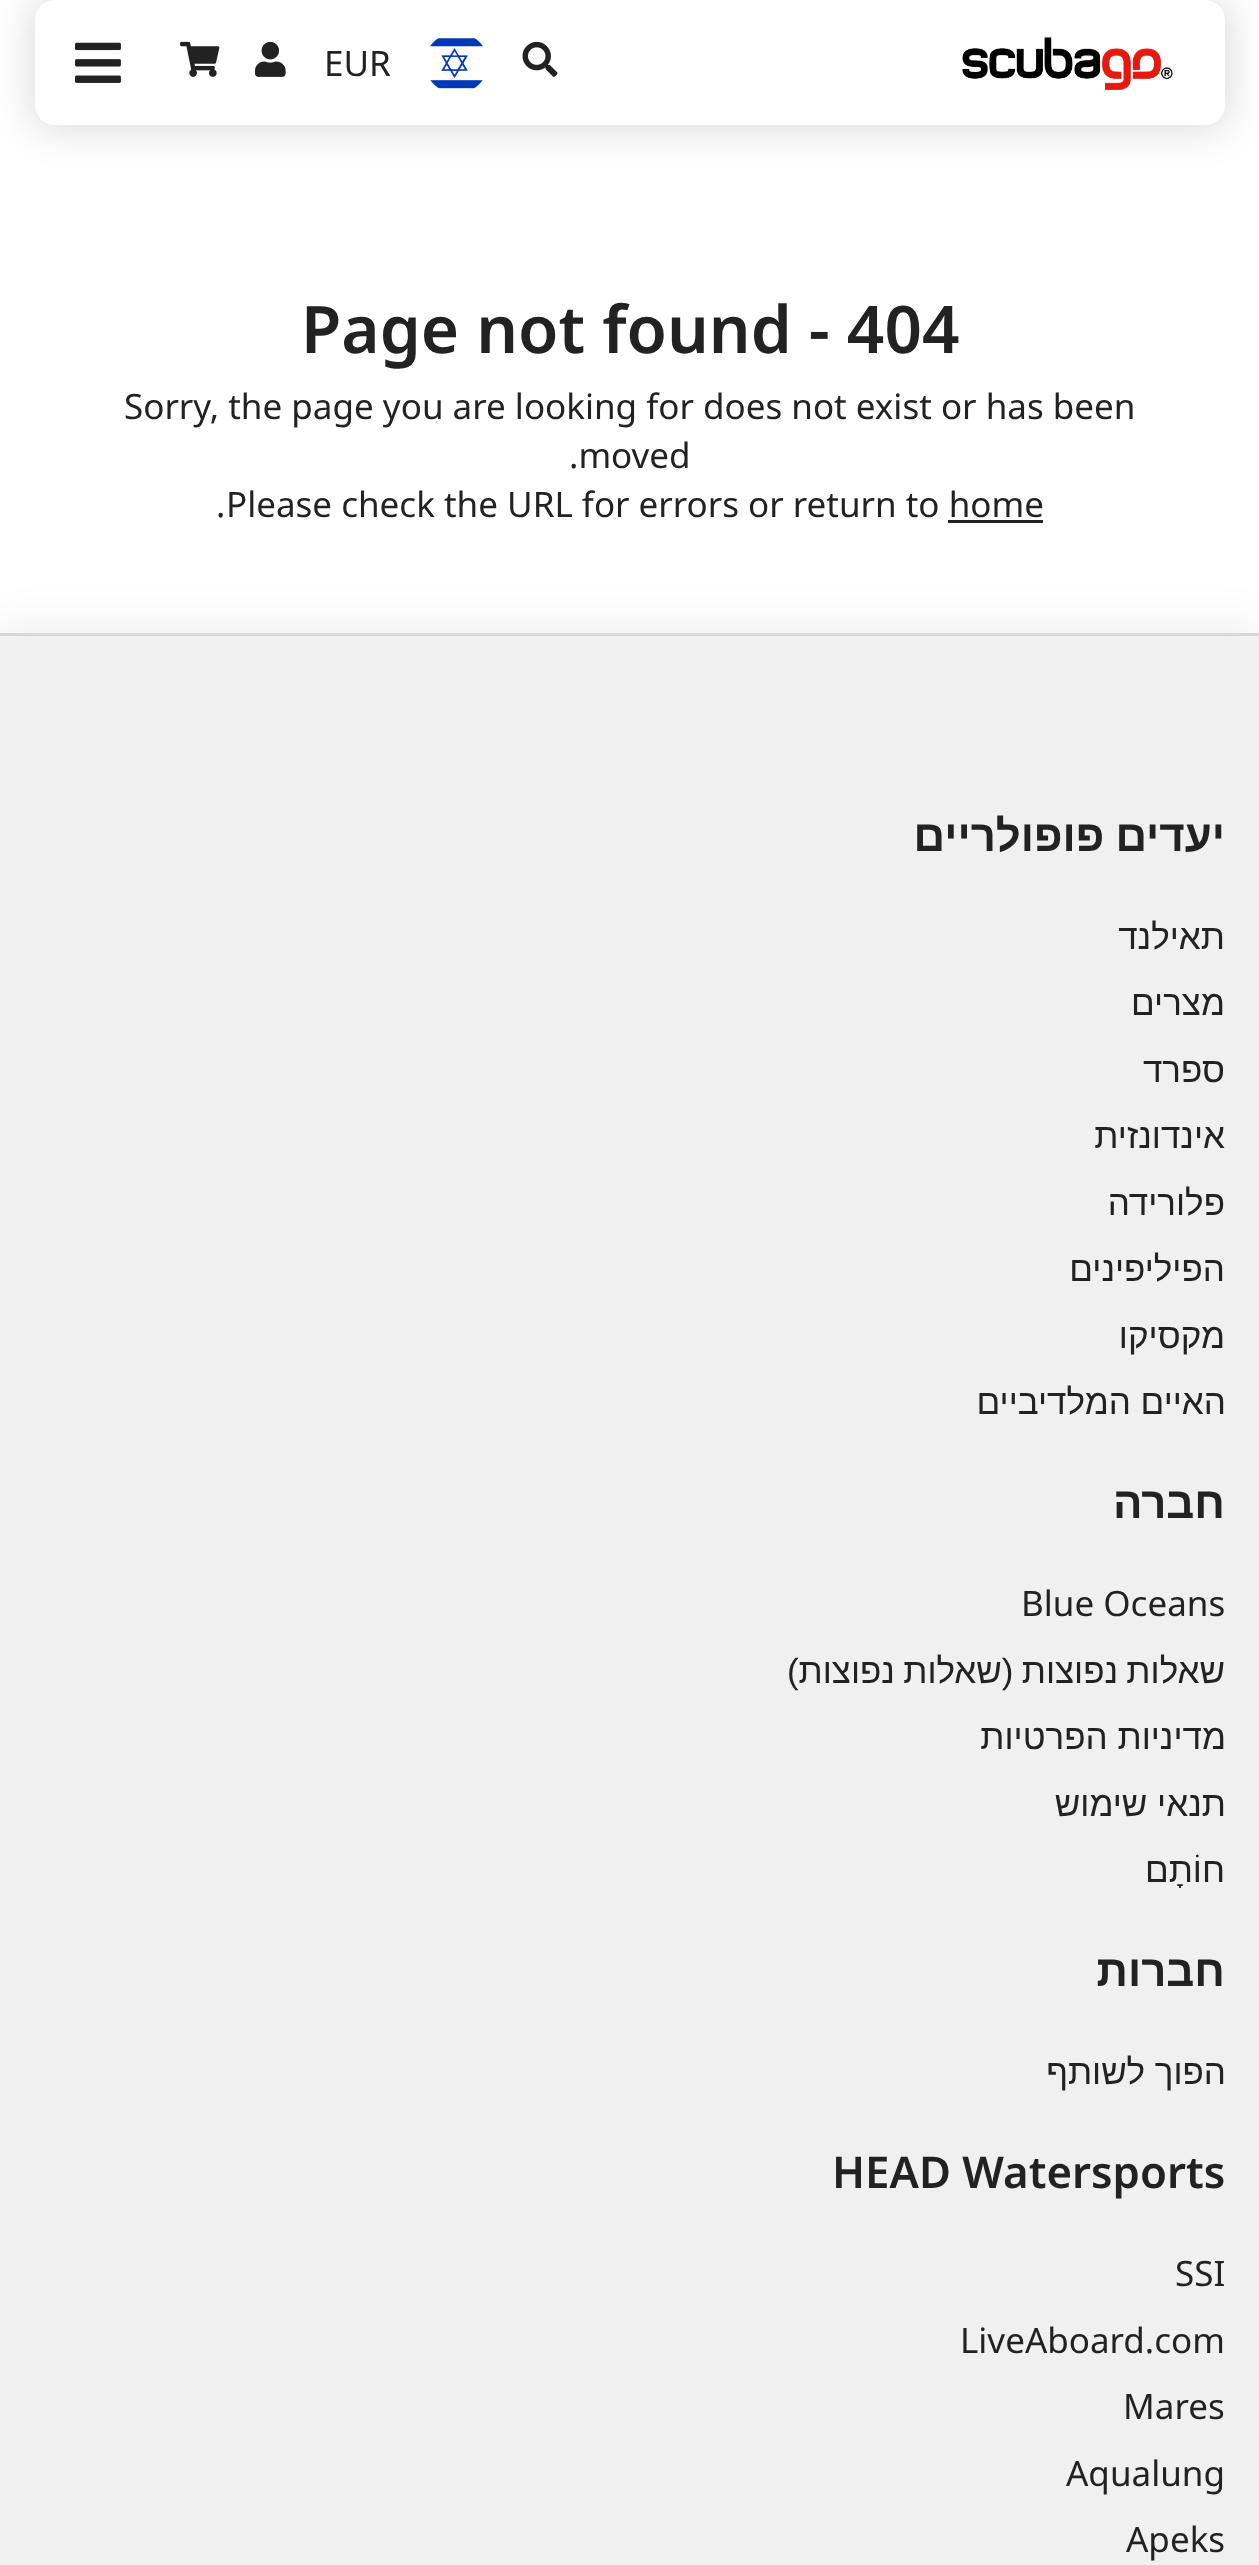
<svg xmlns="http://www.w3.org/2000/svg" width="1259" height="2565">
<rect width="100%" height="100%" fill="#fff"/>
<rect x="33" y="-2" width="1195" height="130" rx="23" fill="#00000026" filter="blur(20px)"/>
<rect x="35" width="1190" height="125" rx="20" fill="#fff"/>
<image x="75" y="42" width="46" height="41" href="media/1.png"/>
<image x="180" y="41" width="40" height="36" href="media/2.png"/>
<image x="255" y="41" width="31" height="36" href="media/3.png"/>
<text x="324" y="76" style="font-family:Noto Sans;font-size:35px;fill:#222">EUR</text>
<image x="429" y="38" width="55" height="51" href="media/4.png"/>
<image x="522" y="41" width="36" height="36" href="media/5.png"/>
<image x="962" y="37" width="211" height="53" href="media/6.png"/>
<text x="301" y="353" style="font-family:Noto Sans;font-size:65.6px;font-weight:600;fill:#222">Page not found - 404</text>
<text x="124" y="419" style="font-family:Noto Sans;font-size:35px;fill:#222">Sorry, the page you are looking for does not exist or has been</text>
<text x="569" y="468" style="font-family:Noto Sans;font-size:35px;fill:#222">.moved</text>
<text x="216" y="517" style="font-family:Noto Sans;font-size:35px;fill:#222">.</text>
<text x="226" y="517" style="font-family:Noto Sans;font-size:35px;fill:#222">Please check the URL for errors or return to home</text>
<rect x="948" y="520" width="95" height="3" fill="#222"/>
<rect y="620" width="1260" height="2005" fill="#0000000d" filter="blur(20px)"/>
<rect y="636" width="1259" height="1929" fill="#f0f0f0"/>
<rect y="633" width="1259" height="3" fill="#d8d8d8"/>
<text x="1225" y="851" word-spacing="-1" style="font-family:Liberation Sans;font-size:43.75px;font-weight:bold;direction:rtl;fill:#222">יעדים פופולריים</text>
<text x="1225" y="949" style="font-family:Liberation Sans;font-size:35px;direction:rtl;fill:#222">תאילנד</text>
<text x="1225" y="1015" style="font-family:Liberation Sans;font-size:35px;direction:rtl;fill:#222">מצרים</text>
<text x="1225" y="1082" style="font-family:Liberation Sans;font-size:35px;direction:rtl;fill:#222">ספרד</text>
<text x="1225" y="1148" style="font-family:Liberation Sans;font-size:35px;direction:rtl;fill:#222">אינדונזית</text>
<text x="1225" y="1215" style="font-family:Liberation Sans;font-size:35px;direction:rtl;fill:#222">פלורידה</text>
<text x="1225" y="1281" style="font-family:Liberation Sans;font-size:35px;direction:rtl;fill:#222">הפיליפינים</text>
<text x="1225" y="1348" style="font-family:Liberation Sans;font-size:35px;direction:rtl;fill:#222">מקסיקו</text>
<text x="1226" y="1414" style="font-family:Liberation Sans;font-size:35px;direction:rtl;fill:#222">האיים המלדיביים</text>
<text x="1225" y="1518" style="font-family:Liberation Sans;font-size:43.75px;font-weight:bold;direction:rtl;fill:#222">חברה</text>
<text x="1021" y="1616" style="font-family:Noto Sans;font-size:35px;fill:#222">Blue Oceans</text>
<text x="1225" y="1683" word-spacing="-1.5" style="font-family:Liberation Sans;font-size:35px;direction:rtl;fill:#222">שאלות נפוצות (שאלות נפוצות)</text>
<text x="1226" y="1749" style="font-family:Liberation Sans;font-size:35px;direction:rtl;fill:#222">מדיניות הפרטיות</text>
<text x="1226" y="1816" style="font-family:Liberation Sans;font-size:35px;direction:rtl;fill:#222">תנאי שימוש</text>
<text x="1225" y="1882" style="font-family:Liberation Sans;font-size:35px;direction:rtl;fill:#222">חוֹתָם</text>
<text x="1225" y="1986" style="font-family:Liberation Sans;font-size:43.75px;font-weight:bold;direction:rtl;fill:#222">חברות</text>
<text x="1226" y="2084" style="font-family:Liberation Sans;font-size:35px;direction:rtl;fill:#222">הפוך לשותף</text>
<text x="832" y="2188" style="font-family:Noto Sans;font-size:43.75px;font-weight:600;fill:#222">HEAD Watersports</text>
<text x="1175" y="2286" style="font-family:Noto Sans;font-size:35px;fill:#222">SSI</text>
<text x="960" y="2353" style="font-family:Noto Sans;font-size:35px;fill:#222">LiveAboard.com</text>
<text x="1123" y="2419" style="font-family:Noto Sans;font-size:35px;fill:#222">Mares</text>
<text x="1066" y="2486" style="font-family:Noto Sans;font-size:35px;fill:#222">Aqualung</text>
<text x="1126" y="2552" style="font-family:Noto Sans;font-size:35px;fill:#222">Apeks</text>
</svg>
